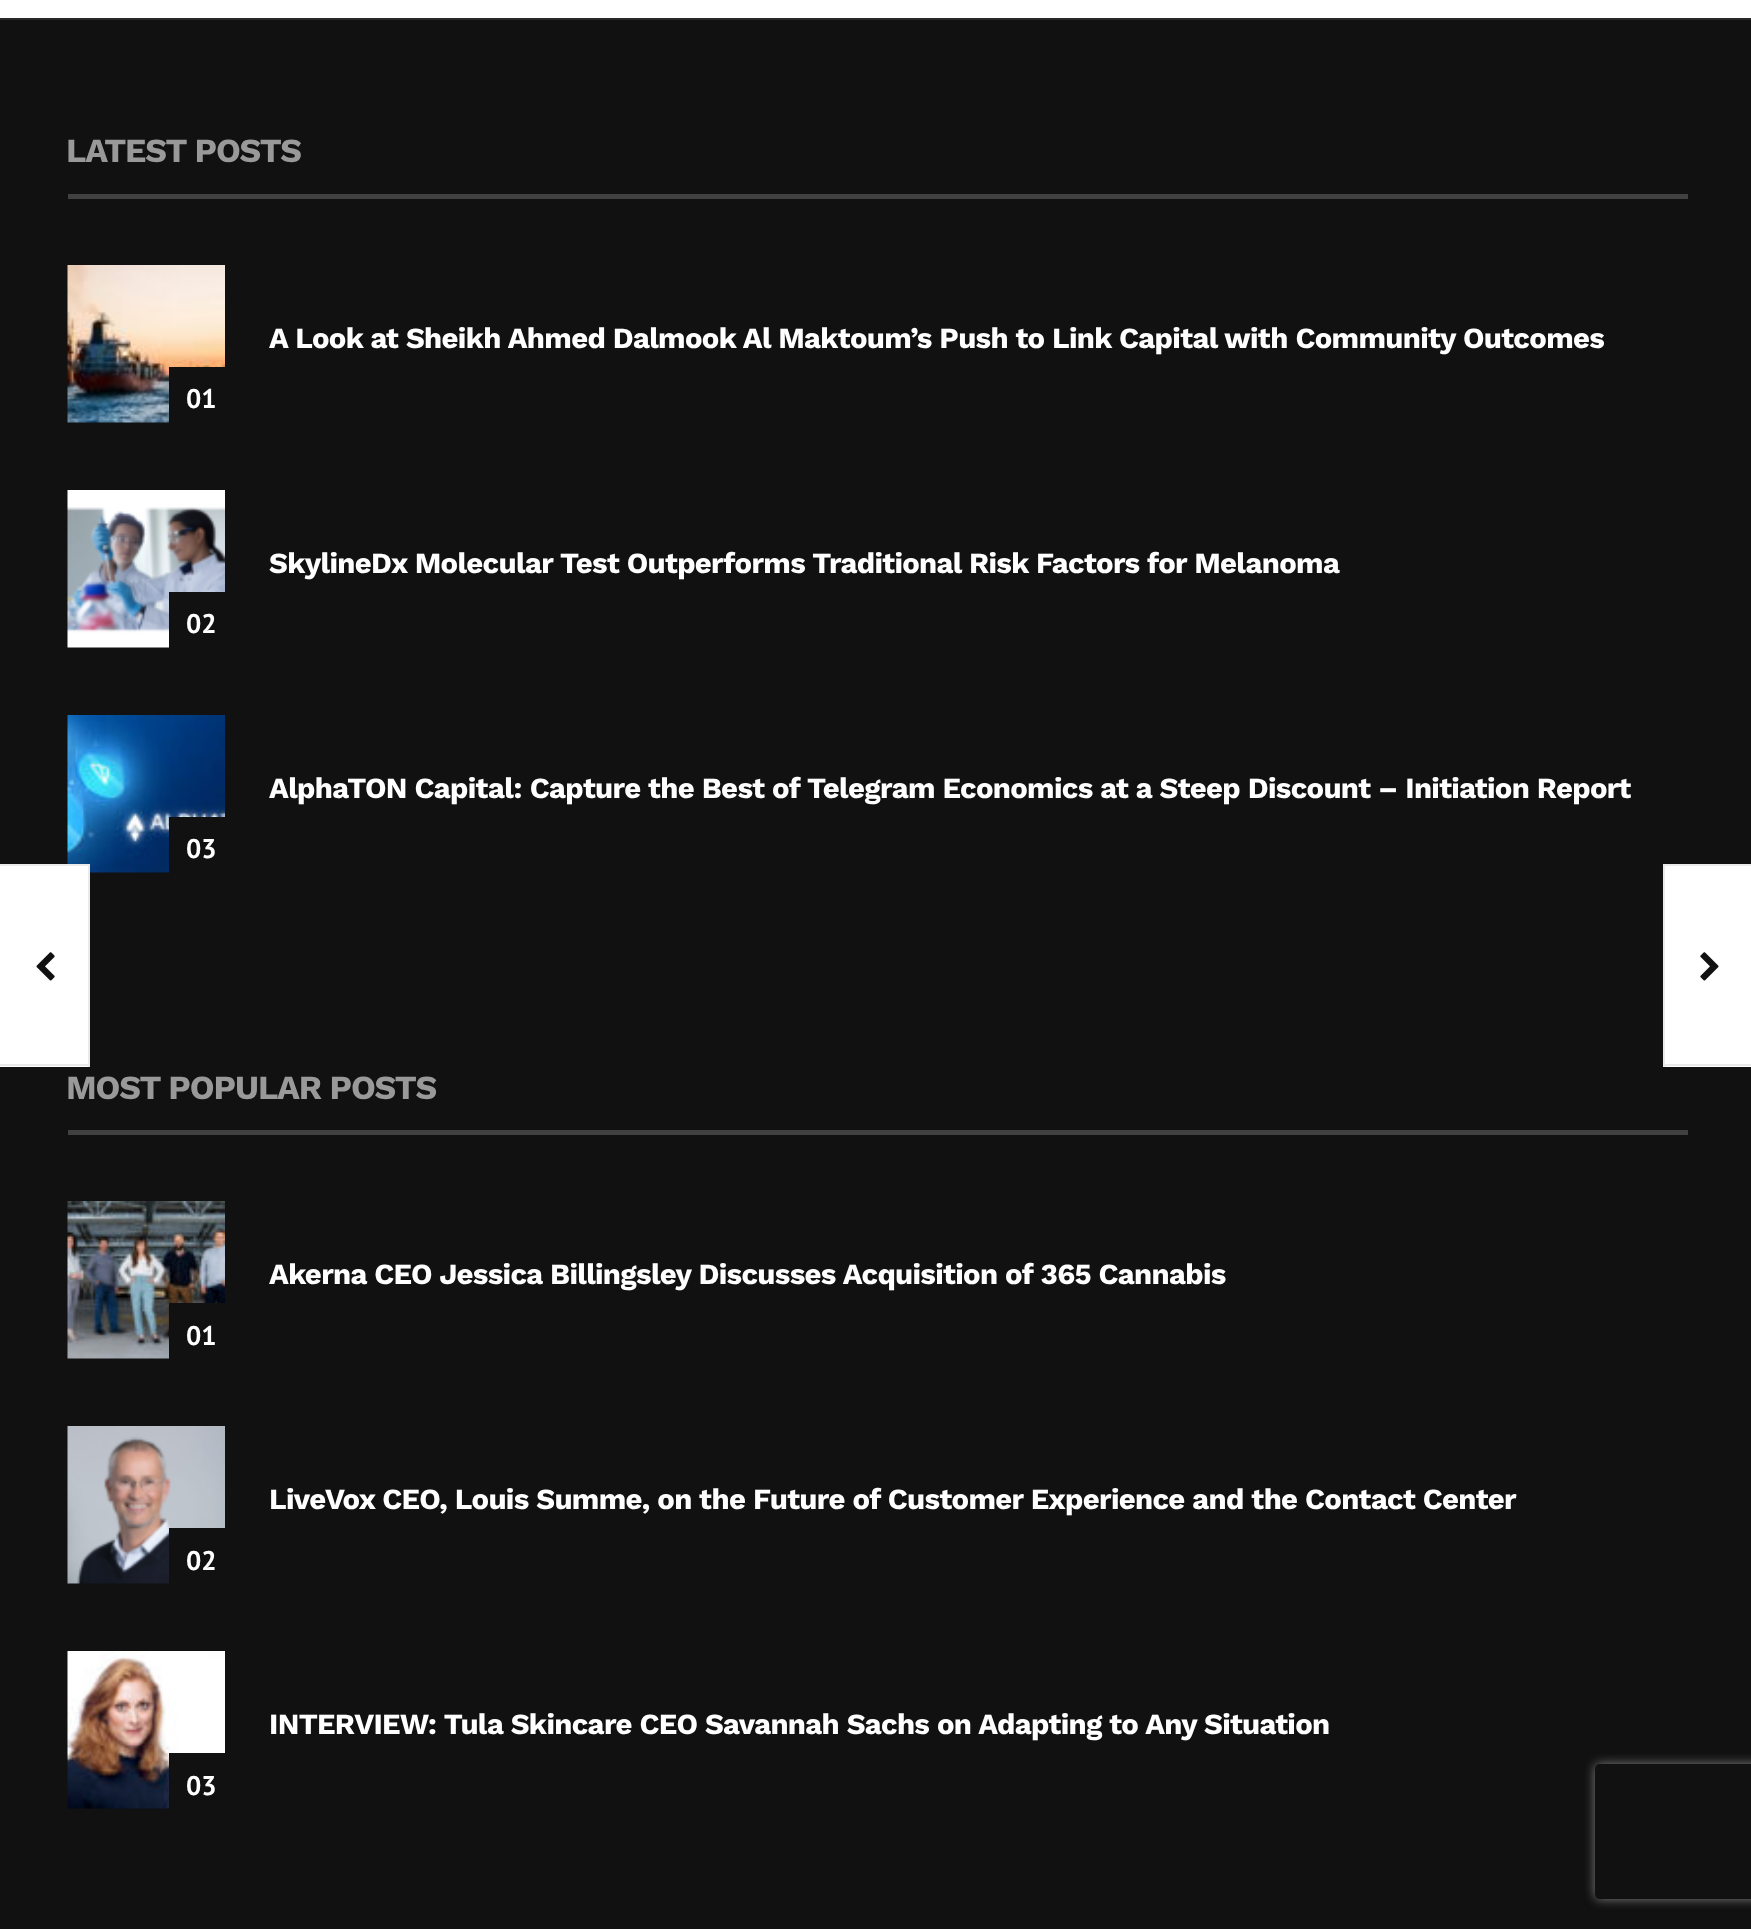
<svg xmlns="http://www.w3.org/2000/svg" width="1751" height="1929">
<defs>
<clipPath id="clip1"><path d="M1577 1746h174v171h-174zm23 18h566c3 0 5 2 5 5v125c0 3-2 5-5 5h-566c-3 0-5-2-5-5v-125c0-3 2-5 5-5z" clip-rule="evenodd"/></clipPath>
</defs>
<rect width="100%" height="100%" fill="#fff"/>
<rect y="20" width="1751" height="1909" fill="#111"/>
<rect y="18" width="1751" height="2" fill="#292929"/>
<rect x="68" y="194" width="1620" height="5" fill="#414141"/>
<text x="66" y="162" style="font-family:Work Sans;font-size:33.75px;font-weight:bold;letter-spacing:-1.1px;fill:#999">LATEST POSTS</text>
<text x="269" y="348" style="font-family:Work Sans;font-size:29.25px;font-weight:bold;letter-spacing:-0.67px;fill:#fff">A Look at Sheikh Ahmed Dalmook Al Maktoum’s Push to Link Capital with Community Outcomes</text>
<image x="67" y="265" width="158" height="158" href="media/1.png"/>
<rect x="169" y="367" width="56" height="56" fill="#111"/>
<text x="186" y="408" style="font-family:PT Sans;font-size:27px;font-weight:bold;fill:#fff">01</text>
<text x="269" y="573" style="font-family:Work Sans;font-size:29.25px;font-weight:bold;letter-spacing:-0.67px;fill:#fff">SkylineDx Molecular Test Outperforms Traditional Risk Factors for Melanoma</text>
<image x="67" y="490" width="158" height="158" href="media/2.png"/>
<rect x="169" y="592" width="56" height="56" fill="#111"/>
<text x="186" y="633" style="font-family:PT Sans;font-size:27px;font-weight:bold;fill:#fff">02</text>
<text x="269" y="798" style="font-family:Work Sans;font-size:29.25px;font-weight:bold;letter-spacing:-0.67px;fill:#fff">AlphaTON Capital: Capture the Best of Telegram Economics at a Steep Discount – Initiation Report</text>
<image x="67" y="715" width="158" height="158" href="media/3.png"/>
<rect x="169" y="817" width="56" height="56" fill="#111"/>
<text x="186" y="858" style="font-family:PT Sans;font-size:27px;font-weight:bold;fill:#fff">03</text>
<rect x="68" y="1130" width="1620" height="5" fill="#414141"/>
<text x="66" y="1099" style="font-family:Work Sans;font-size:33.75px;font-weight:bold;letter-spacing:-1.1px;fill:#999">MOST POPULAR POSTS</text>
<text x="269" y="1284" style="font-family:Work Sans;font-size:29.25px;font-weight:bold;letter-spacing:-0.67px;fill:#fff">Akerna CEO Jessica Billingsley Discusses Acquisition of 365 Cannabis</text>
<image x="67" y="1201" width="158" height="158" href="media/4.png"/>
<rect x="169" y="1303" width="56" height="56" fill="#111"/>
<text x="186" y="1345" style="font-family:PT Sans;font-size:27px;font-weight:bold;fill:#fff">01</text>
<text x="269" y="1509" style="font-family:Work Sans;font-size:29.25px;font-weight:bold;letter-spacing:-0.67px;fill:#fff">LiveVox CEO, Louis Summe, on the Future of Customer Experience and the Contact Center</text>
<image x="67" y="1426" width="158" height="158" href="media/5.png"/>
<rect x="169" y="1528" width="56" height="56" fill="#111"/>
<text x="186" y="1570" style="font-family:PT Sans;font-size:27px;font-weight:bold;fill:#fff">02</text>
<text x="269" y="1734" style="font-family:Work Sans;font-size:29.25px;font-weight:bold;letter-spacing:-0.67px;fill:#fff">INTERVIEW: Tula Skincare CEO Savannah Sachs on Adapting to Any Situation</text>
<image x="67" y="1651" width="158" height="158" href="media/6.png"/>
<rect x="169" y="1753" width="56" height="56" fill="#111"/>
<text x="186" y="1795" style="font-family:PT Sans;font-size:27px;font-weight:bold;fill:#fff">03</text>
<rect y="866" width="88" height="201" fill="#fff"/>
<rect y="864" width="90" height="2" fill="#eaeaea"/>
<rect x="88" y="864" width="2" height="203" fill="#eaeaea"/>
<rect y="1064" width="90" height="2" fill="#eaeaea"/>
<image x="36" y="952" width="19" height="29" href="media/7.png"/>
<rect x="1665" y="866" width="86" height="201" fill="#fff"/>
<rect x="1663" y="864" width="88" height="2" fill="#eaeaea"/>
<rect x="1663" y="1064" width="88" height="2" fill="#eaeaea"/>
<rect x="1663" y="864" width="2" height="203" fill="#eaeaea"/>
<image x="1700" y="952" width="19" height="29" href="media/8.png"/>
<g clip-path="url(#clip1)">
<rect x="1595" y="1764" width="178" height="135" rx="5" fill="#808080" filter="blur(5.5px)"/>
</g>
</svg>
